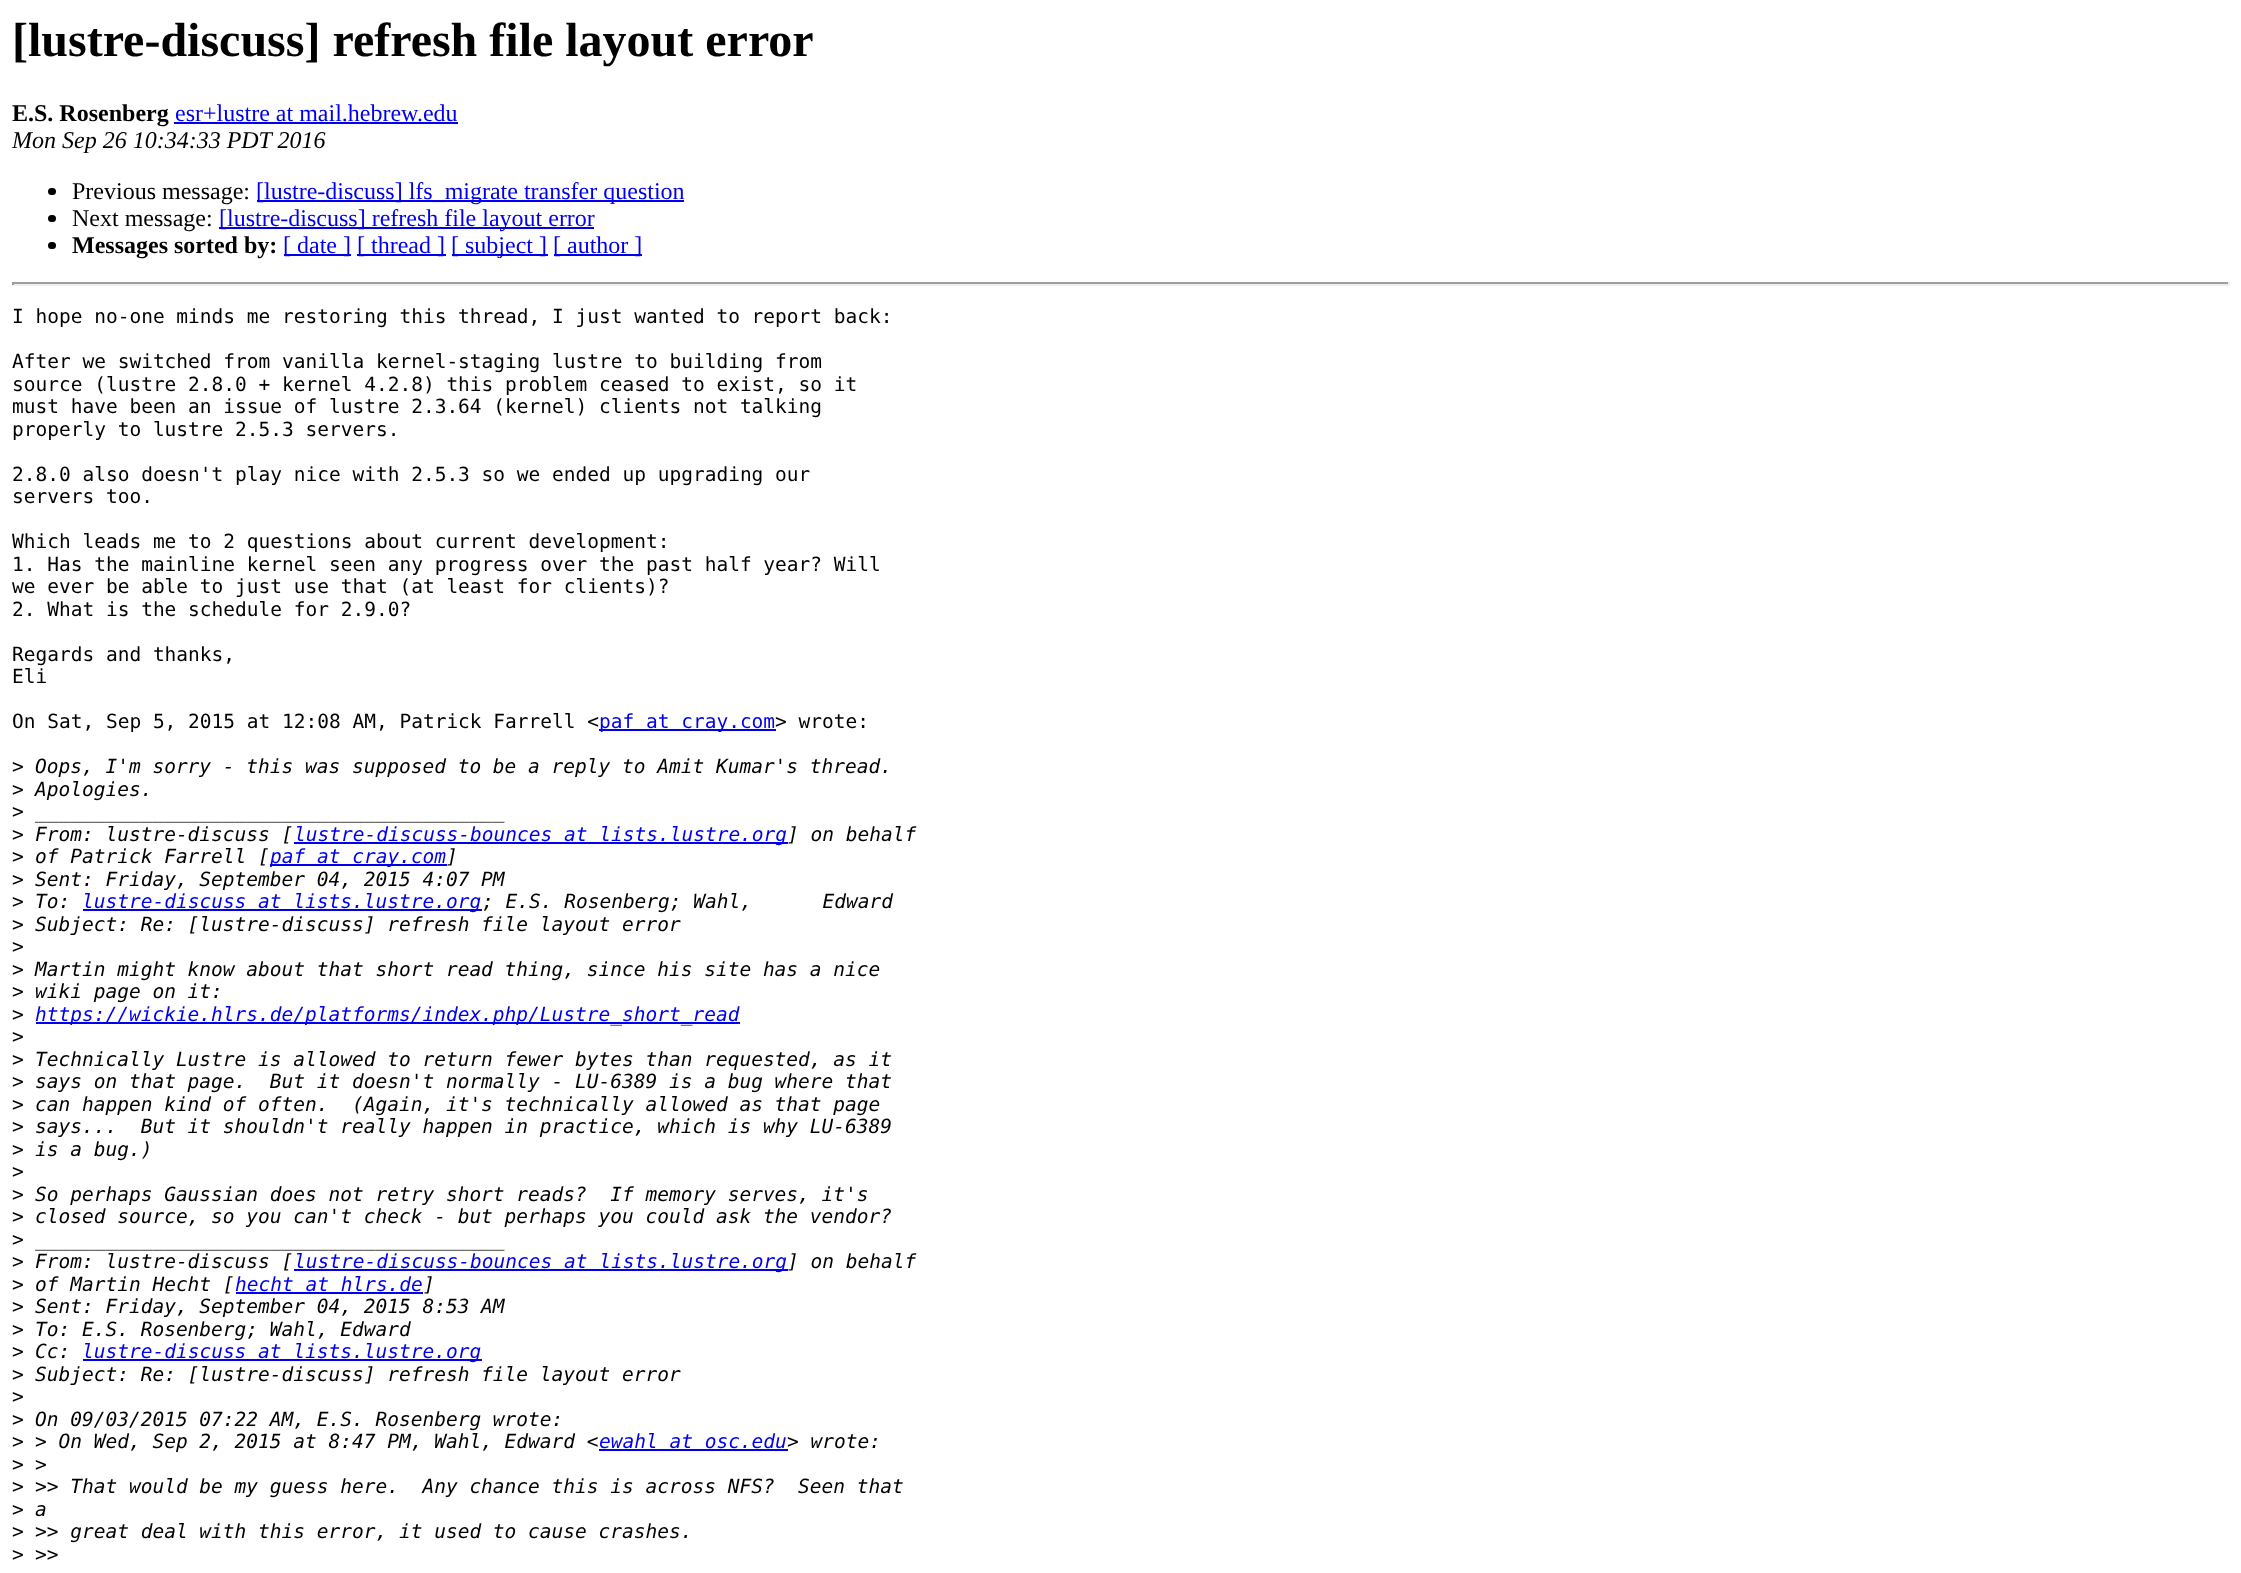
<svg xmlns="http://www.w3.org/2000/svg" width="2241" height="1573">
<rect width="100%" height="100%" fill="#fff"/>
<text x="12" y="56" style="font-family:Liberation Serif;font-size:48px;font-weight:bold;fill:#000">[lustre-discuss] refresh file layout error</text>
<text x="12" y="121" style="font-family:Liberation Serif;font-size:24px;font-weight:bold;fill:#000">E.S. Rosenberg</text>
<text x="175" y="121" style="font-family:Liberation Serif;font-size:24px;fill:#00e">esr+lustre at mail.hebrew.edu</text>
<rect x="174" y="122" width="284" height="2" fill="#00e"/>
<text x="12" y="148" style="font-family:Liberation Serif;font-size:24px;font-style:italic;fill:#000">Mon Sep 26 10:34:33 PDT 2016</text>
<rect x="48" y="188" width="8" height="7" rx="3.5" fill="#000"/>
<text x="72" y="199" style="font-family:Liberation Serif;font-size:24px;fill:#000">Previous message:</text>
<rect x="257" y="200" width="427" height="2" fill="#00e"/>
<text x="256" y="199" style="font-family:Liberation Serif;font-size:24px;fill:#00e">[lustre-discuss] lfs_migrate transfer question</text>
<rect x="48" y="215" width="8" height="7" rx="3.5" fill="#000"/>
<text x="72" y="226" style="font-family:Liberation Serif;font-size:24px;fill:#000">Next message:</text>
<rect x="219" y="227" width="375" height="2" fill="#00e"/>
<text x="219" y="226" style="font-family:Liberation Serif;font-size:24px;fill:#00e">[lustre-discuss] refresh file layout error</text>
<rect x="48" y="242" width="8" height="7" rx="3.5" fill="#000"/>
<text x="72" y="253" style="font-family:Liberation Serif;font-size:24px;font-weight:bold;fill:#000">Messages sorted by:</text>
<rect x="284" y="254" width="67" height="2" fill="#00e"/>
<text x="283" y="253" style="font-family:Liberation Serif;font-size:24px;fill:#00e">[ date ]</text>
<rect x="357" y="254" width="89" height="2" fill="#00e"/>
<text x="357" y="253" style="font-family:Liberation Serif;font-size:24px;fill:#00e">[ thread ]</text>
<rect x="452" y="254" width="96" height="2" fill="#00e"/>
<text x="451" y="253" style="font-family:Liberation Serif;font-size:24px;fill:#00e">[ subject ]</text>
<rect x="554" y="254" width="88" height="2" fill="#00e"/>
<text x="553" y="253" style="font-family:Liberation Serif;font-size:24px;fill:#00e">[ author ]</text>
<rect x="12" y="282" width="2217" height="2" fill="#9f9f9f"/>
<rect x="2228" y="282" width="2" height="3" fill="#eee"/>
<rect x="12" y="284" width="2217" height="2" fill="#eee"/>
<rect x="12" y="282" width="2" height="3" fill="#9f9f9f"/>
<text x="12" y="323" style="font-family:DejaVu Sans Mono;font-size:19.5px;fill:#000">I hope no-one minds me restoring this thread, I just wanted to report back:</text>
<text x="12" y="368" style="font-family:DejaVu Sans Mono;font-size:19.5px;fill:#000">After we switched from vanilla kernel-staging lustre to building from</text>
<text x="12" y="391" style="font-family:DejaVu Sans Mono;font-size:19.5px;fill:#000">source (lustre 2.8.0 + kernel 4.2.8) this problem ceased to exist, so it</text>
<text x="12" y="413" style="font-family:DejaVu Sans Mono;font-size:19.5px;fill:#000">must have been an issue of lustre 2.3.64 (kernel) clients not talking</text>
<text x="12" y="436" style="font-family:DejaVu Sans Mono;font-size:19.5px;fill:#000">properly to lustre 2.5.3 servers.</text>
<text x="12" y="481" style="font-family:DejaVu Sans Mono;font-size:19.5px;fill:#000">2.8.0 also doesn't play nice with 2.5.3 so we ended up upgrading our</text>
<text x="12" y="503" style="font-family:DejaVu Sans Mono;font-size:19.5px;fill:#000">servers too.</text>
<text x="12" y="548" style="font-family:DejaVu Sans Mono;font-size:19.5px;fill:#000">Which leads me to 2 questions about current development:</text>
<text x="12" y="571" style="font-family:DejaVu Sans Mono;font-size:19.5px;fill:#000">1. Has the mainline kernel seen any progress over the past half year? Will</text>
<text x="12" y="593" style="font-family:DejaVu Sans Mono;font-size:19.5px;fill:#000">we ever be able to just use that (at least for clients)?</text>
<text x="12" y="616" style="font-family:DejaVu Sans Mono;font-size:19.5px;fill:#000">2. What is the schedule for 2.9.0?</text>
<text x="12" y="661" style="font-family:DejaVu Sans Mono;font-size:19.5px;fill:#000">Regards and thanks,</text>
<text x="12" y="683" style="font-family:DejaVu Sans Mono;font-size:19.5px;fill:#000">Eli</text>
<text x="12" y="728" style="font-family:DejaVu Sans Mono;font-size:19.5px;fill:#000">On Sat, Sep 5, 2015 at 12:08 AM, Patrick Farrell &lt;</text>
<rect x="599" y="729" width="177" height="2" fill="#00e"/>
<text x="599" y="728" style="font-family:DejaVu Sans Mono;font-size:19.5px;fill:#00e">paf at cray.com</text>
<text x="775" y="728" style="font-family:DejaVu Sans Mono;font-size:19.5px;fill:#000">&gt; wrote:</text>
<text x="12" y="773" style="font-family:DejaVu Sans Mono;font-size:19.5px;fill:#000">&gt;</text>
<text x="35" y="773" style="font-family:DejaVu Sans Mono;font-size:19.5px;font-style:italic;fill:#000">Oops, I'm sorry - this was supposed to be a reply to Amit Kumar's thread.</text>
<text x="12" y="796" style="font-family:DejaVu Sans Mono;font-size:19.5px;fill:#000">&gt;</text>
<text x="35" y="796" style="font-family:DejaVu Sans Mono;font-size:19.5px;font-style:italic;fill:#000">Apologies.</text>
<text x="12" y="818" style="font-family:DejaVu Sans Mono;font-size:19.5px;fill:#000">&gt;</text>
<text x="35" y="818" style="font-family:DejaVu Sans Mono;font-size:19.5px;font-style:italic;fill:#000">________________________________________</text>
<text x="12" y="841" style="font-family:DejaVu Sans Mono;font-size:19.5px;fill:#000">&gt;</text>
<text x="35" y="841" style="font-family:DejaVu Sans Mono;font-size:19.5px;font-style:italic;fill:#000">From: lustre-discuss [</text>
<rect x="294" y="842" width="494" height="2" fill="#00e"/>
<text x="294" y="841" style="font-family:DejaVu Sans Mono;font-size:19.5px;font-style:italic;fill:#00e">lustre-discuss-bounces at lists.lustre.org</text>
<text x="787" y="841" style="font-family:DejaVu Sans Mono;font-size:19.5px;font-style:italic;fill:#000">] on behalf</text>
<text x="12" y="863" style="font-family:DejaVu Sans Mono;font-size:19.5px;fill:#000">&gt;</text>
<text x="35" y="863" style="font-family:DejaVu Sans Mono;font-size:19.5px;font-style:italic;fill:#000">of Patrick Farrell [</text>
<rect x="270" y="864" width="177" height="2" fill="#00e"/>
<text x="270" y="863" style="font-family:DejaVu Sans Mono;font-size:19.5px;font-style:italic;fill:#00e">paf at cray.com</text>
<text x="446" y="863" style="font-family:DejaVu Sans Mono;font-size:19.5px;font-style:italic;fill:#000">]</text>
<text x="12" y="886" style="font-family:DejaVu Sans Mono;font-size:19.5px;fill:#000">&gt;</text>
<text x="35" y="886" style="font-family:DejaVu Sans Mono;font-size:19.5px;font-style:italic;fill:#000">Sent: Friday, September 04, 2015 4:07 PM</text>
<text x="12" y="908" style="font-family:DejaVu Sans Mono;font-size:19.5px;fill:#000">&gt;</text>
<text x="35" y="908" style="font-family:DejaVu Sans Mono;font-size:19.5px;font-style:italic;fill:#000">To:</text>
<rect x="83" y="909" width="399" height="2" fill="#00e"/>
<text x="82" y="908" style="font-family:DejaVu Sans Mono;font-size:19.5px;font-style:italic;fill:#00e">lustre-discuss at lists.lustre.org</text>
<text x="482" y="908" style="font-family:DejaVu Sans Mono;font-size:19.5px;font-style:italic;fill:#000" xml:space="preserve">; E.S. Rosenberg; Wahl,      Edward</text>
<text x="12" y="931" style="font-family:DejaVu Sans Mono;font-size:19.5px;fill:#000">&gt;</text>
<text x="35" y="931" style="font-family:DejaVu Sans Mono;font-size:19.5px;font-style:italic;fill:#000">Subject: Re: [lustre-discuss] refresh file layout error</text>
<text x="12" y="953" style="font-family:DejaVu Sans Mono;font-size:19.5px;fill:#000">&gt;</text>
<text x="12" y="976" style="font-family:DejaVu Sans Mono;font-size:19.5px;fill:#000">&gt;</text>
<text x="35" y="976" style="font-family:DejaVu Sans Mono;font-size:19.5px;font-style:italic;fill:#000">Martin might know about that short read thing, since his site has a nice</text>
<text x="12" y="998" style="font-family:DejaVu Sans Mono;font-size:19.5px;fill:#000">&gt;</text>
<text x="35" y="998" style="font-family:DejaVu Sans Mono;font-size:19.5px;font-style:italic;fill:#000">wiki page on it:</text>
<text x="12" y="1021" style="font-family:DejaVu Sans Mono;font-size:19.5px;fill:#000">&gt;</text>
<rect x="36" y="1022" width="704" height="2" fill="#00e"/>
<text x="35" y="1021" style="font-family:DejaVu Sans Mono;font-size:19.5px;font-style:italic;fill:#00e">https://wickie.hlrs.de/platforms/index.php/Lustre_short_read</text>
<text x="12" y="1043" style="font-family:DejaVu Sans Mono;font-size:19.5px;fill:#000">&gt;</text>
<text x="12" y="1066" style="font-family:DejaVu Sans Mono;font-size:19.5px;fill:#000">&gt;</text>
<text x="35" y="1066" style="font-family:DejaVu Sans Mono;font-size:19.5px;font-style:italic;fill:#000">Technically Lustre is allowed to return fewer bytes than requested, as it</text>
<text x="12" y="1088" style="font-family:DejaVu Sans Mono;font-size:19.5px;fill:#000">&gt;</text>
<text x="35" y="1088" style="font-family:DejaVu Sans Mono;font-size:19.5px;font-style:italic;fill:#000" xml:space="preserve">says on that page.  But it doesn't normally - LU-6389 is a bug where that</text>
<text x="12" y="1111" style="font-family:DejaVu Sans Mono;font-size:19.5px;fill:#000">&gt;</text>
<text x="35" y="1111" style="font-family:DejaVu Sans Mono;font-size:19.5px;font-style:italic;fill:#000" xml:space="preserve">can happen kind of often.  (Again, it's technically allowed as that page</text>
<text x="12" y="1133" style="font-family:DejaVu Sans Mono;font-size:19.5px;fill:#000">&gt;</text>
<text x="35" y="1133" style="font-family:DejaVu Sans Mono;font-size:19.5px;font-style:italic;fill:#000" xml:space="preserve">says...  But it shouldn't really happen in practice, which is why LU-6389</text>
<text x="12" y="1156" style="font-family:DejaVu Sans Mono;font-size:19.5px;fill:#000">&gt;</text>
<text x="35" y="1156" style="font-family:DejaVu Sans Mono;font-size:19.5px;font-style:italic;fill:#000">is a bug.)</text>
<text x="12" y="1178" style="font-family:DejaVu Sans Mono;font-size:19.5px;fill:#000">&gt;</text>
<text x="12" y="1201" style="font-family:DejaVu Sans Mono;font-size:19.5px;fill:#000">&gt;</text>
<text x="35" y="1201" style="font-family:DejaVu Sans Mono;font-size:19.5px;font-style:italic;fill:#000" xml:space="preserve">So perhaps Gaussian does not retry short reads?  If memory serves, it's</text>
<text x="12" y="1223" style="font-family:DejaVu Sans Mono;font-size:19.5px;fill:#000">&gt;</text>
<text x="35" y="1223" style="font-family:DejaVu Sans Mono;font-size:19.5px;font-style:italic;fill:#000">closed source, so you can't check - but perhaps you could ask the vendor?</text>
<text x="12" y="1246" style="font-family:DejaVu Sans Mono;font-size:19.5px;fill:#000">&gt;</text>
<text x="35" y="1246" style="font-family:DejaVu Sans Mono;font-size:19.5px;font-style:italic;fill:#000">________________________________________</text>
<text x="12" y="1268" style="font-family:DejaVu Sans Mono;font-size:19.5px;fill:#000">&gt;</text>
<text x="35" y="1268" style="font-family:DejaVu Sans Mono;font-size:19.5px;font-style:italic;fill:#000">From: lustre-discuss [</text>
<rect x="294" y="1269" width="494" height="2" fill="#00e"/>
<text x="294" y="1268" style="font-family:DejaVu Sans Mono;font-size:19.5px;font-style:italic;fill:#00e">lustre-discuss-bounces at lists.lustre.org</text>
<text x="787" y="1268" style="font-family:DejaVu Sans Mono;font-size:19.5px;font-style:italic;fill:#000">] on behalf</text>
<text x="12" y="1291" style="font-family:DejaVu Sans Mono;font-size:19.5px;fill:#000">&gt;</text>
<text x="35" y="1291" style="font-family:DejaVu Sans Mono;font-size:19.5px;font-style:italic;fill:#000">of Martin Hecht [</text>
<text x="235" y="1291" style="font-family:DejaVu Sans Mono;font-size:19.5px;font-style:italic;fill:#00e">hecht at hlrs.de</text>
<text x="423" y="1291" style="font-family:DejaVu Sans Mono;font-size:19.5px;font-style:italic;fill:#000">]</text>
<rect x="236" y="1292" width="187" height="2" fill="#00e"/>
<text x="12" y="1313" style="font-family:DejaVu Sans Mono;font-size:19.5px;fill:#000">&gt;</text>
<text x="35" y="1313" style="font-family:DejaVu Sans Mono;font-size:19.5px;font-style:italic;fill:#000">Sent: Friday, September 04, 2015 8:53 AM</text>
<text x="12" y="1336" style="font-family:DejaVu Sans Mono;font-size:19.5px;fill:#000">&gt;</text>
<text x="35" y="1336" style="font-family:DejaVu Sans Mono;font-size:19.5px;font-style:italic;fill:#000">To: E.S. Rosenberg; Wahl, Edward</text>
<text x="12" y="1358" style="font-family:DejaVu Sans Mono;font-size:19.5px;fill:#000">&gt;</text>
<text x="35" y="1358" style="font-family:DejaVu Sans Mono;font-size:19.5px;font-style:italic;fill:#000">Cc:</text>
<rect x="83" y="1359" width="399" height="2" fill="#00e"/>
<text x="82" y="1358" style="font-family:DejaVu Sans Mono;font-size:19.5px;font-style:italic;fill:#00e">lustre-discuss at lists.lustre.org</text>
<text x="12" y="1381" style="font-family:DejaVu Sans Mono;font-size:19.5px;fill:#000">&gt;</text>
<text x="35" y="1381" style="font-family:DejaVu Sans Mono;font-size:19.5px;font-style:italic;fill:#000">Subject: Re: [lustre-discuss] refresh file layout error</text>
<text x="12" y="1403" style="font-family:DejaVu Sans Mono;font-size:19.5px;fill:#000">&gt;</text>
<text x="12" y="1426" style="font-family:DejaVu Sans Mono;font-size:19.5px;fill:#000">&gt;</text>
<text x="35" y="1426" style="font-family:DejaVu Sans Mono;font-size:19.5px;font-style:italic;fill:#000">On 09/03/2015 07:22 AM, E.S. Rosenberg wrote:</text>
<text x="12" y="1448" style="font-family:DejaVu Sans Mono;font-size:19.5px;fill:#000">&gt;</text>
<text x="35" y="1448" style="font-family:DejaVu Sans Mono;font-size:19.5px;font-style:italic;fill:#000">&gt; On Wed, Sep 2, 2015 at 8:47 PM, Wahl, Edward &lt;</text>
<rect x="599" y="1449" width="189" height="2" fill="#00e"/>
<text x="599" y="1448" style="font-family:DejaVu Sans Mono;font-size:19.5px;font-style:italic;fill:#00e">ewahl at osc.edu</text>
<text x="787" y="1448" style="font-family:DejaVu Sans Mono;font-size:19.5px;font-style:italic;fill:#000">&gt; wrote:</text>
<text x="12" y="1471" style="font-family:DejaVu Sans Mono;font-size:19.5px;fill:#000">&gt;</text>
<text x="35" y="1471" style="font-family:DejaVu Sans Mono;font-size:19.5px;font-style:italic;fill:#000">&gt;</text>
<text x="12" y="1493" style="font-family:DejaVu Sans Mono;font-size:19.5px;fill:#000">&gt;</text>
<text x="35" y="1493" style="font-family:DejaVu Sans Mono;font-size:19.5px;font-style:italic;fill:#000" xml:space="preserve">&gt;&gt; That would be my guess here.  Any chance this is across NFS?  Seen that</text>
<text x="12" y="1516" style="font-family:DejaVu Sans Mono;font-size:19.5px;fill:#000">&gt;</text>
<text x="35" y="1516" style="font-family:DejaVu Sans Mono;font-size:19.5px;font-style:italic;fill:#000">a</text>
<text x="12" y="1538" style="font-family:DejaVu Sans Mono;font-size:19.5px;fill:#000">&gt;</text>
<text x="35" y="1538" style="font-family:DejaVu Sans Mono;font-size:19.5px;font-style:italic;fill:#000">&gt;&gt; great deal with this error, it used to cause crashes.</text>
<text x="12" y="1561" style="font-family:DejaVu Sans Mono;font-size:19.5px;fill:#000">&gt;</text>
<text x="35" y="1561" style="font-family:DejaVu Sans Mono;font-size:19.5px;font-style:italic;fill:#000">&gt;&gt;</text>
</svg>
